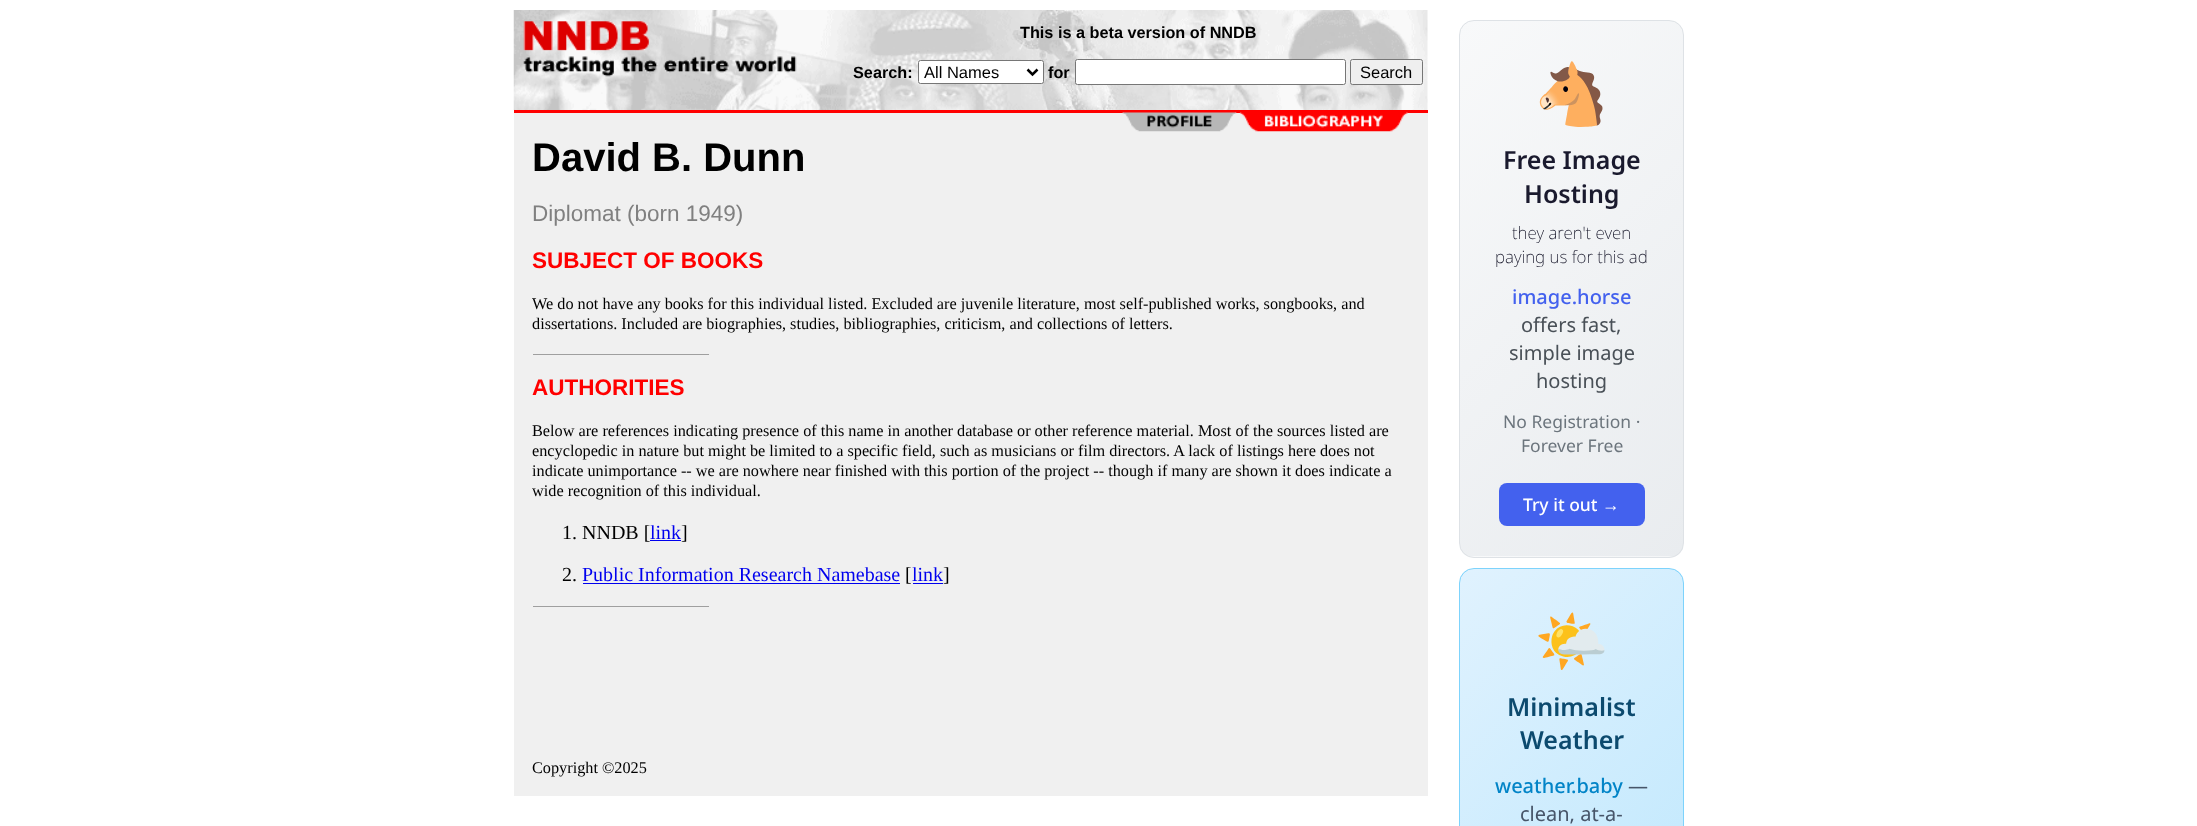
<svg xmlns="http://www.w3.org/2000/svg" width="2197" height="826">
<defs>
<clipPath id="clip1"><rect x="1459" y="20" width="225" height="538" rx="15"/></clipPath>
<linearGradient id="g1" gradientUnits="userSpaceOnUse" x1="1382" y1="99" x2="1761" y2="478"><stop offset="0" stop-color="#f8f9fa"/><stop offset="1" stop-color="#e9ecef"/></linearGradient>
<linearGradient id="g2" gradientUnits="userSpaceOnUse" x1="1382" y1="634" x2="1761" y2="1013"><stop offset="0" stop-color="#f8f9fa"/><stop offset="1" stop-color="#e9ecef"/></linearGradient>
<clipPath id="clip2"><rect x="1459" y="568" width="225" height="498" rx="15"/></clipPath>
<linearGradient id="g3" gradientUnits="userSpaceOnUse" x1="1392" y1="637" x2="1751" y2="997"><stop offset="0" stop-color="#e0f2fe"/><stop offset="1" stop-color="#bae6fd"/></linearGradient>
</defs>
<rect width="100%" height="100%" fill="#fff"/>
<image x="513" y="10" width="915" height="100" href="media/1.png"/>
<image x="523" y="21" width="274" height="56" href="media/2.png"/>
<text x="1020" y="38" style="font-family:Liberation Sans;font-size:16.25px;font-weight:bold;fill:#000">This is a beta version of NNDB</text>
<text x="853" y="78" style="font-family:Liberation Sans;font-size:16.25px;font-weight:bold;fill:#000">Search:</text>
<rect x="918.5" y="60.5" width="125" height="23" rx="2" fill="#fff" stroke="#767676"/>
<path d="M1027.5 69.5l5 5l5-5" fill="none" stroke="#000" stroke-width="2.5"/>
<text x="924" y="78" style="font-family:Liberation Sans;font-size:16.5px;fill:#000">All Names</text>
<text x="1048" y="78" style="font-family:Liberation Sans;font-size:16.25px;font-weight:bold;fill:#000">for</text>
<rect x="1075.5" y="59.5" width="270" height="25" rx="2" fill="#fff" stroke="#767676"/>
<rect x="1350.5" y="59.5" width="72" height="25" rx="2" fill="#efefef" stroke="#767676"/>
<text x="1360" y="78" style="font-family:Liberation Sans;font-size:16.5px;fill:#000">Search</text>
<rect x="514" y="110" width="914" height="3" fill="#f00"/>
<rect x="514" y="113" width="914" height="683" fill="#f0f0f0"/>
<image x="1122" y="112" width="286" height="20" href="media/3.png"/>
<text x="532" y="171" style="font-family:Liberation Sans;font-size:40px;font-weight:bold;fill:#000">David B. Dunn</text>
<text x="532" y="221" style="font-family:Liberation Sans;font-size:22.5px;fill:#808080">Diplomat (born 1949)</text>
<text x="532" y="268" style="font-family:Liberation Sans;font-size:22.5px;font-weight:bold;fill:#f00">SUBJECT OF BOOKS</text>
<text x="532" y="309" style="font-family:Liberation Serif;font-size:16.25px;fill:#000">We do not have any books for this individual listed. Excluded are juvenile literature, most self-published works, songbooks, and</text>
<text x="532" y="329" style="font-family:Liberation Serif;font-size:16.25px;fill:#000">dissertations. Included are biographies, studies, bibliographies, criticism, and collections of letters.</text>
<rect x="533" y="354" width="177" height="1" fill="#9f9f9f"/>
<rect x="709" y="354" width="1" height="1" fill="#eee"/>
<text x="532" y="395" style="font-family:Liberation Sans;font-size:22.5px;font-weight:bold;fill:#f00">AUTHORITIES</text>
<text x="532" y="436" style="font-family:Liberation Serif;font-size:16.25px;fill:#000">Below are references indicating presence of this name in another database or other reference material. Most of the sources listed are</text>
<text x="532" y="456" style="font-family:Liberation Serif;font-size:16.25px;fill:#000">encyclopedic in nature but might be limited to a specific field, such as musicians or film directors. A lack of listings here does not</text>
<text x="532" y="476" style="font-family:Liberation Serif;font-size:16.25px;fill:#000">indicate unimportance -- we are nowhere near finished with this portion of the project -- though if many are shown it does indicate a</text>
<text x="532" y="496" style="font-family:Liberation Serif;font-size:16.25px;fill:#000">wide recognition of this individual.</text>
<text x="562" y="539" style="font-family:Liberation Serif;font-size:20px;fill:#000">1. NNDB [</text>
<text x="650" y="539" style="font-family:Liberation Serif;font-size:20px;fill:#00e">link</text>
<rect x="650" y="540" width="31" height="1" fill="#00e"/>
<text x="681" y="539" style="font-family:Liberation Serif;font-size:20px;fill:#000">]</text>
<text x="562" y="581" style="font-family:Liberation Serif;font-size:20px;fill:#000">2.</text>
<text x="582" y="581" style="font-family:Liberation Serif;font-size:20px;fill:#00e">Public Information Research Namebase</text>
<rect x="583" y="583" width="317" height="1" fill="#00e"/>
<text x="905" y="581" style="font-family:Liberation Serif;font-size:20px;fill:#000">[</text>
<text x="912" y="581" style="font-family:Liberation Serif;font-size:20px;fill:#00e">link</text>
<rect x="913" y="583" width="30" height="1" fill="#00e"/>
<text x="943" y="581" style="font-family:Liberation Serif;font-size:20px;fill:#000">]</text>
<rect x="533" y="606" width="177" height="1" fill="#9f9f9f"/>
<rect x="709" y="606" width="1" height="1" fill="#eee"/>
<text x="532" y="773" style="font-family:Liberation Serif;font-size:16.25px;fill:#000">Copyright ©2025</text>
<g clip-path="url(#clip1)">
<rect x="1460" y="21" width="223" height="535" fill="url(#g1)"/>
<rect x="1460" y="556" width="223" height="2" fill="url(#g2)"/>
</g>
<rect x="1459.5" y="20.5" width="224" height="537" rx="14.5" fill="none" stroke="#dee2e6"/>
<text x="1534" y="115" style="font-family:Noto Color Emoji;font-size:60px;fill:#00e">🐴</text>
<text x="1503" y="169" style="font-family:Noto Sans;font-size:25px;font-weight:600;fill:#1a1a2e">Free Image</text>
<text x="1524" y="203" style="font-family:Noto Sans;font-size:25px;font-weight:600;fill:#1a1a2e">Hosting</text>
<text x="1512" y="239" style="font-family:Noto Sans;font-size:17px;font-weight:200;fill:#0a0a1e">they aren't even</text>
<text x="1495" y="263" style="font-family:Noto Sans;font-size:17px;font-weight:200;fill:#0a0a1e">paying us for this ad</text>
<text x="1512" y="304" style="font-family:Noto Sans;font-size:20px;font-weight:500;fill:#4361ee">image.horse</text>
<text x="1521" y="332" style="font-family:Noto Sans;font-size:20px;fill:#495057">offers fast,</text>
<text x="1509" y="360" style="font-family:Noto Sans;font-size:20px;fill:#495057">simple image</text>
<text x="1536" y="388" style="font-family:Noto Sans;font-size:20px;fill:#495057">hosting</text>
<text x="1503" y="428" style="font-family:Noto Sans;font-size:17.5px;fill:#6c757d">No Registration ·</text>
<text x="1521" y="452" style="font-family:Noto Sans;font-size:17.5px;fill:#6c757d">Forever Free</text>
<rect x="1499" y="483" width="146" height="43" rx="8" fill="#4361ee"/>
<text x="1523" y="511" style="font-family:Noto Sans;font-size:17.5px;font-weight:500;fill:#fff">Try it out</text>
<text x="1602" y="511" style="font-family:Liberation Sans;font-size:17.5px;fill:#fff">→</text>
<g clip-path="url(#clip2)">
<rect x="1460" y="569" width="223" height="257" fill="url(#g3)"/>
</g>
<rect x="1459.5" y="568.5" width="224" height="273" rx="14.5" fill="none" stroke="#7dd3fc"/>
<text x="1534" y="662" style="font-family:Noto Color Emoji;font-size:60px;fill:#00e">🌤️</text>
<text x="1507" y="716" style="font-family:Noto Sans;font-size:25px;font-weight:600;fill:#0c4a6e">Minimalist</text>
<text x="1520" y="749" style="font-family:Noto Sans;font-size:25px;font-weight:600;fill:#0c4a6e">Weather</text>
<text x="1495" y="793" style="font-family:Noto Sans;font-size:20px;font-weight:500;fill:#0284c7">weather.baby</text>
<text x="1628" y="793" style="font-family:Noto Sans;font-size:20px;fill:#475569">—</text>
<text x="1520" y="821" style="font-family:Noto Sans;font-size:20px;fill:#475569">clean, at-a-</text>
</svg>
